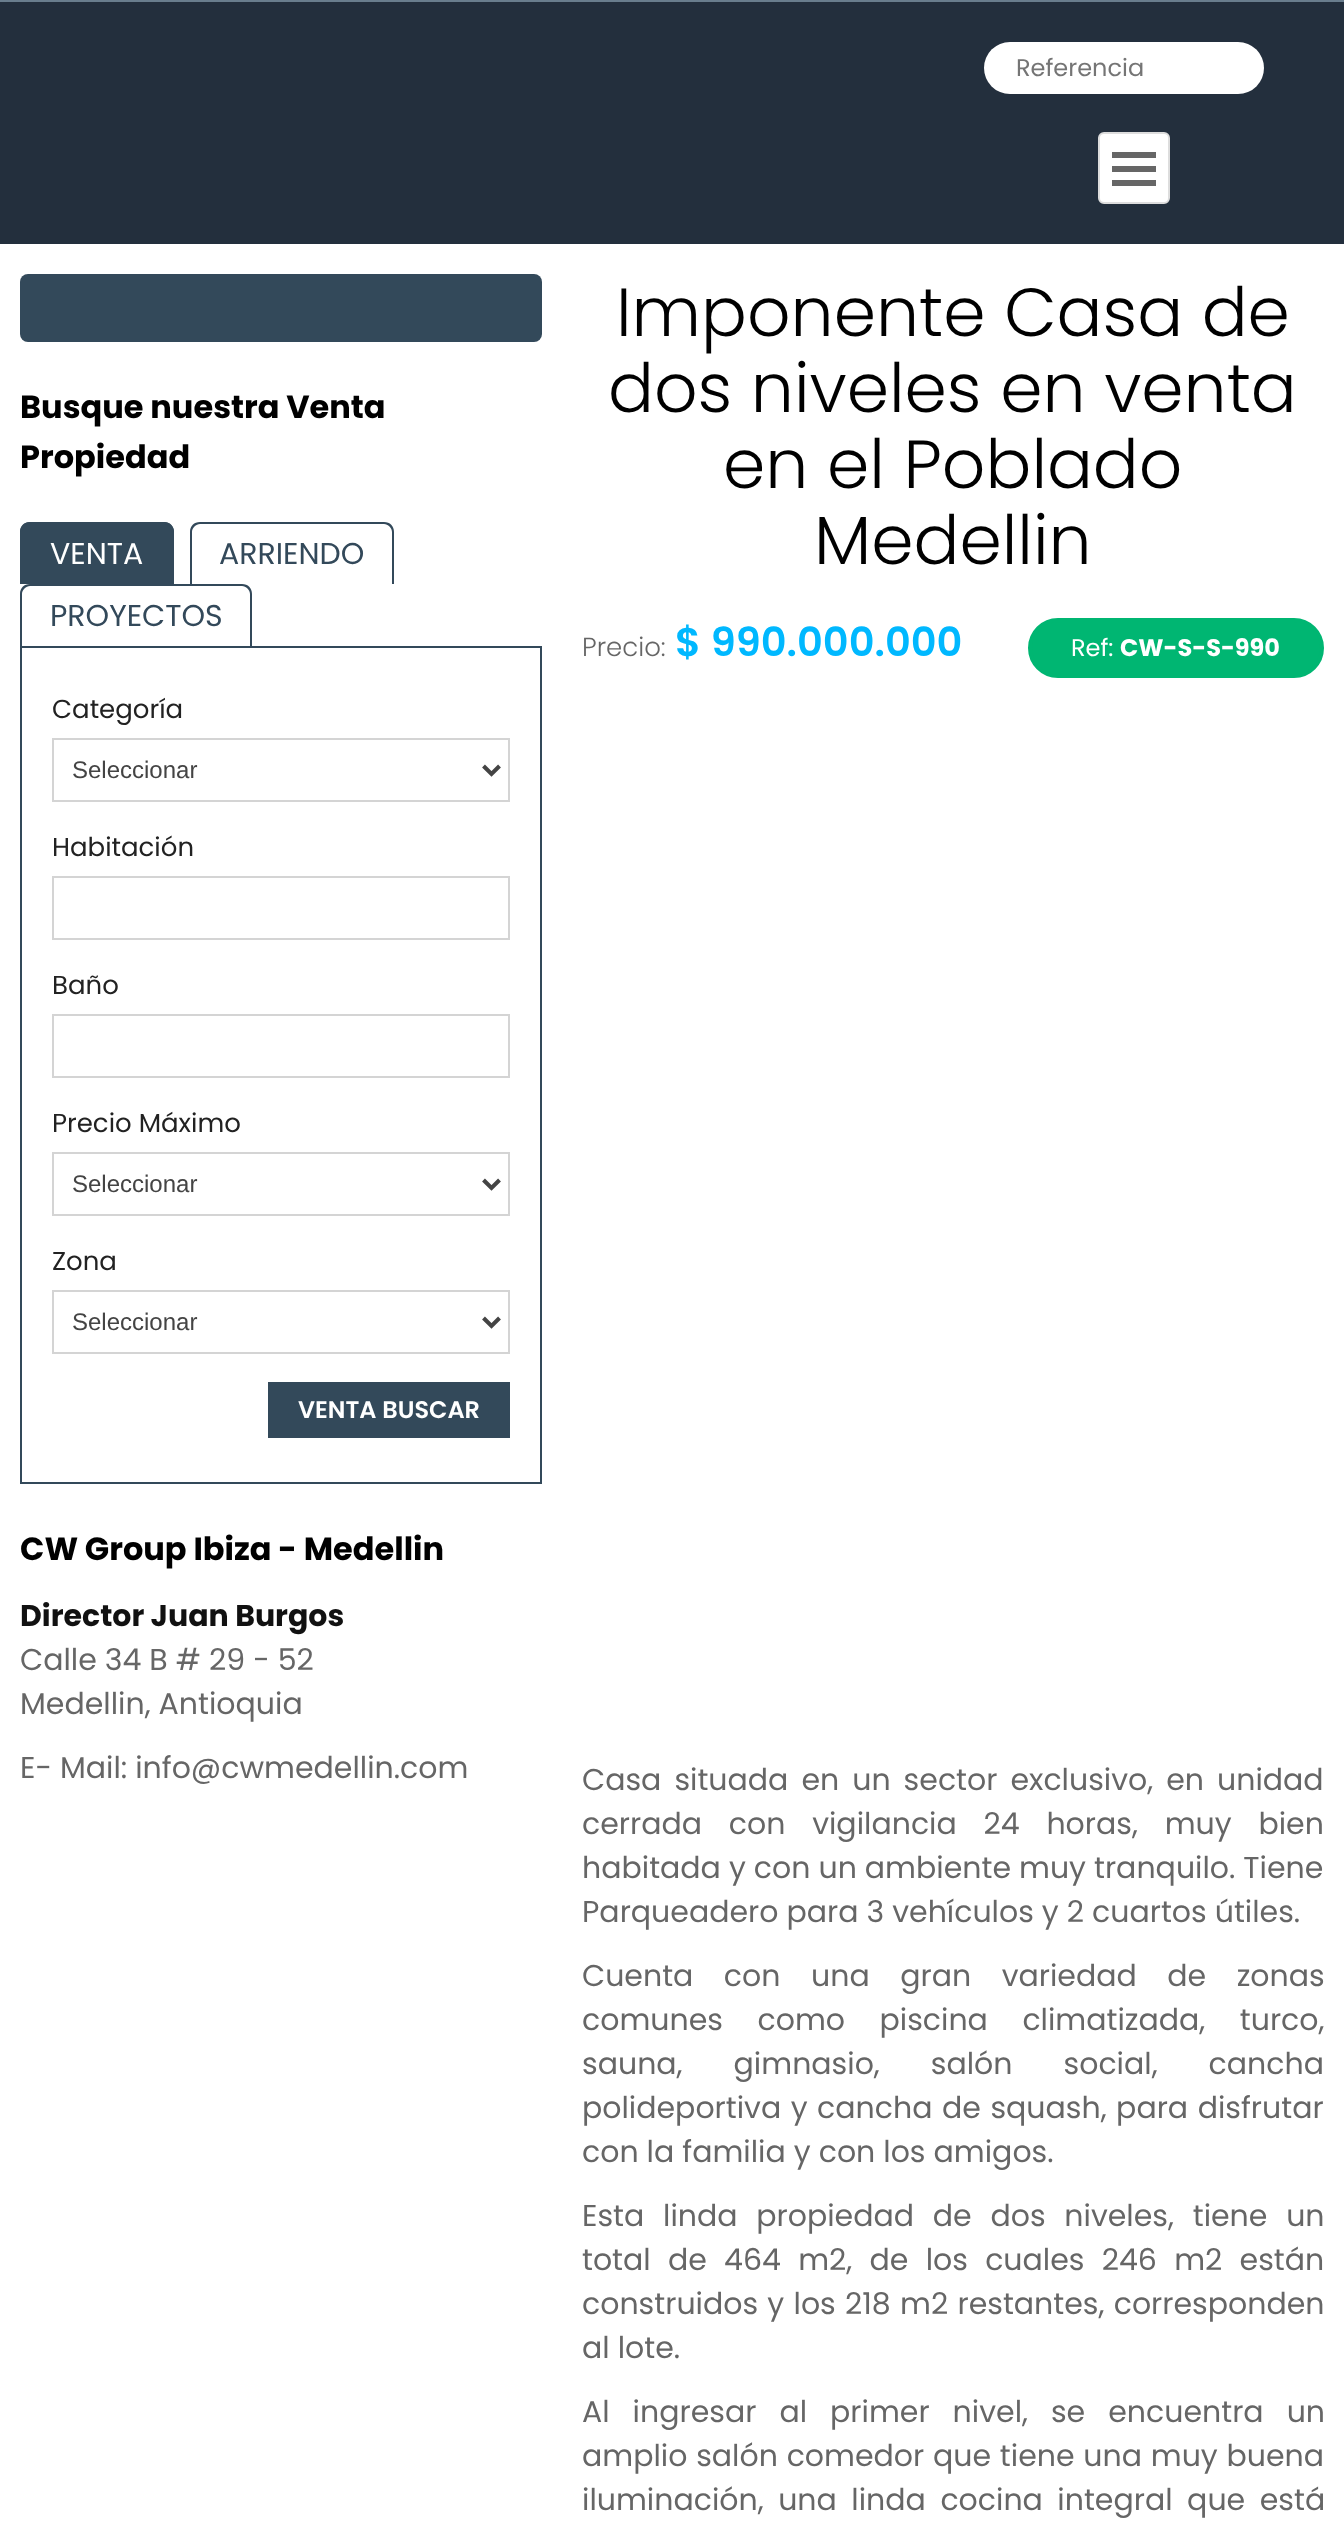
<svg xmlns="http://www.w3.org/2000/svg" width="1344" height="2542">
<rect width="100%" height="100%" fill="#fff"/>
<rect y="2" width="1344" height="242" fill="#232f3d"/>
<rect width="1344" height="2" fill="#697d8d"/>
<rect x="984" y="42" width="280" height="52" rx="26" fill="#fff"/>
<text x="1016" y="76" style="font-family:Poppins;font-size:24px;fill:#757575">Referencia</text>
<rect x="1099" y="133" width="70" height="70" rx="5" fill="#fff" stroke="#ddd" stroke-width="2"/>
<rect x="1112" y="152" width="44" height="6" fill="#666"/>
<rect x="1112" y="166" width="44" height="6" fill="#666"/>
<rect x="1112" y="180" width="44" height="6" fill="#666"/>
<rect x="20" y="274" width="522" height="68" rx="8" fill="#33495a"/>
<text x="20" y="418" style="font-family:Poppins;font-size:32px;font-weight:bold;fill:#000">Busque nuestra Venta</text>
<text x="20" y="468" style="font-family:Poppins;font-size:32px;font-weight:bold;fill:#000">Propiedad</text>
<path d="M30 522h134c5.5 0 10 4.5 10 10v52h-154v-52c0-5.5 4.5-10 10-10z" fill="#33495a"/>
<path d="M30 522h134c6 0 10 4 10 10v52h-154v-52c0-6 4-10 10-10zm0 2h134c4 0 8 4 8 8v52h-150v-52c0-4 4-8 8-8z" fill="#33495a" fill-rule="evenodd"/>
<text x="50" y="564" style="font-family:Poppins;font-size:30px;fill:#fff">VENTA</text>
<path d="M200 522h184c6 0 10 4 10 10v52h-204v-52c0-6 4-10 10-10zm0 2h184c4 0 8 4 8 8v52h-200v-52c0-4 4-8 8-8z" fill="#33495a" fill-rule="evenodd"/>
<text x="219" y="564" style="font-family:Poppins;font-size:30px;fill:#33495a">ARRIENDO</text>
<path d="M30 584h212c6 0 10 4 10 10v52h-232v-52c0-6 4-10 10-10zm0 2h212c4 0 8 4 8 8v52h-228v-52c0-4 4-8 8-8z" fill="#33495a" fill-rule="evenodd"/>
<text x="50" y="626" style="font-family:Poppins;font-size:30px;fill:#33495a">PROYECTOS</text>
<rect x="21" y="647" width="520" height="836" fill="none" stroke="#33495a" stroke-width="2"/>
<text x="52" y="718" style="font-family:Poppins;font-size:26px;fill:#222">Categoría</text>
<rect x="53" y="739" width="456" height="62" fill="none" stroke="#d4d4d4" stroke-width="2"/>
<path d="M483.5 766l8 8l8-8" fill="none" stroke="#444" stroke-width="4"/>
<text x="72" y="778" style="font-family:Liberation Sans;font-size:24px;fill:#444">Seleccionar</text>
<text x="52" y="856" style="font-family:Poppins;font-size:26px;fill:#222">Habitación</text>
<rect x="53" y="877" width="456" height="62" fill="none" stroke="#d4d4d4" stroke-width="2"/>
<text x="52" y="994" style="font-family:Poppins;font-size:26px;fill:#222">Baño</text>
<rect x="53" y="1015" width="456" height="62" fill="none" stroke="#d4d4d4" stroke-width="2"/>
<text x="52" y="1132" style="font-family:Poppins;font-size:26px;fill:#222">Precio Máximo</text>
<rect x="53" y="1153" width="456" height="62" fill="none" stroke="#d4d4d4" stroke-width="2"/>
<path d="M483.5 1180l8 8l8-8" fill="none" stroke="#444" stroke-width="4"/>
<text x="72" y="1192" style="font-family:Liberation Sans;font-size:24px;fill:#444">Seleccionar</text>
<text x="52" y="1270" style="font-family:Poppins;font-size:26px;fill:#222">Zona</text>
<rect x="53" y="1291" width="456" height="62" fill="none" stroke="#d4d4d4" stroke-width="2"/>
<path d="M483.5 1318l8 8l8-8" fill="none" stroke="#444" stroke-width="4"/>
<text x="72" y="1330" style="font-family:Liberation Sans;font-size:24px;fill:#444">Seleccionar</text>
<rect x="268" y="1382" width="242" height="56" fill="#33495a"/>
<text x="298" y="1418" style="font-family:Poppins;font-size:24px;font-weight:600;fill:#fff">VENTA BUSCAR</text>
<text x="20" y="1560" style="font-family:Poppins;font-size:32px;font-weight:bold;fill:#000">CW Group Ibiza - Medellin</text>
<text x="20" y="1626" style="font-family:Poppins;font-size:30px;font-weight:bold;fill:#111">Director Juan Burgos</text>
<text x="20" y="1670" style="font-family:Poppins;font-size:30px;fill:#666">Calle 34 B # 29 - 52</text>
<text x="20" y="1714" style="font-family:Poppins;font-size:30px;fill:#666">Medellin, Antioquia</text>
<text x="20" y="1778" style="font-family:Poppins;font-size:30px;fill:#666">E- Mail: info@cwmedellin.com</text>
<text x="616" y="336" style="font-family:Poppins;font-size:68px;font-weight:300;fill:#000">Imponente Casa de</text>
<text x="608" y="412" style="font-family:Poppins;font-size:68px;font-weight:300;fill:#000">dos niveles en venta</text>
<text x="723" y="488" style="font-family:Poppins;font-size:68px;font-weight:300;fill:#000">en el Poblado</text>
<text x="814" y="564" style="font-family:Poppins;font-size:68px;font-weight:300;fill:#000">Medellin</text>
<text x="582" y="656" style="font-family:Poppins;font-size:26px;font-weight:300;fill:#666">Precio:</text>
<text x="675" y="656" style="font-family:Poppins;font-size:40px;font-weight:600;fill:#00b8ff">$ 990.000.000</text>
<rect x="1030" y="620" width="292" height="56" rx="28" fill="#00b672" stroke="#00b672" stroke-width="4"/>
<text x="1071" y="656" style="font-family:Poppins;font-size:24px;fill:#fff">Ref:</text>
<text x="1120" y="656" style="font-family:Poppins;font-size:24px;font-weight:bold;fill:#fff">CW-S-S-990</text>
<text x="582" y="1790" word-spacing="5" style="font-family:Poppins;font-size:30px;fill:#666">Casa situada en un sector exclusivo, en unidad</text>
<text x="582" y="1834" word-spacing="18.75" style="font-family:Poppins;font-size:30px;fill:#666">cerrada con vigilancia 24 horas, muy bien</text>
<text x="582" y="1878" style="font-family:Poppins;font-size:30px;fill:#666">habitada y con un ambiente muy tranquilo. Tiene</text>
<text x="582" y="1922" style="font-family:Poppins;font-size:30px;fill:#666">Parqueadero para 3 vehículos y 2 cuartos útiles.</text>
<text x="582" y="1986" word-spacing="22.5" style="font-family:Poppins;font-size:30px;fill:#666">Cuenta con una gran variedad de zonas</text>
<text x="582" y="2030" word-spacing="26.5" style="font-family:Poppins;font-size:30px;fill:#666">comunes como piscina climatizada, turco,</text>
<text x="582" y="2074" word-spacing="43" style="font-family:Poppins;font-size:30px;fill:#666">sauna, gimnasio, salón social, cancha</text>
<text x="582" y="2118" word-spacing="1.5" style="font-family:Poppins;font-size:30px;fill:#666">polideportiva y cancha de squash, para disfrutar</text>
<text x="582" y="2162" style="font-family:Poppins;font-size:30px;fill:#666">con la familia y con los amigos.</text>
<text x="582" y="2226" word-spacing="10.75" style="font-family:Poppins;font-size:30px;fill:#666">Esta linda propiedad de dos niveles, tiene un</text>
<text x="582" y="2270" word-spacing="9.25" style="font-family:Poppins;font-size:30px;fill:#666">total de 464 m2, de los cuales 246 m2 están</text>
<text x="582" y="2314" word-spacing="1.25" style="font-family:Poppins;font-size:30px;fill:#666">construidos y los 218 m2 restantes, corresponden</text>
<text x="582" y="2358" style="font-family:Poppins;font-size:30px;fill:#666">al lote.</text>
<text x="582" y="2422" word-spacing="15" style="font-family:Poppins;font-size:30px;fill:#666">Al ingresar al primer nivel, se encuentra un</text>
<text x="582" y="2466" word-spacing="0.75" style="font-family:Poppins;font-size:30px;fill:#666">amplio salón comedor que tiene una muy buena</text>
<text x="582" y="2510" word-spacing="6.5" style="font-family:Poppins;font-size:30px;fill:#666">iluminación, una linda cocina integral que está</text>
</svg>
